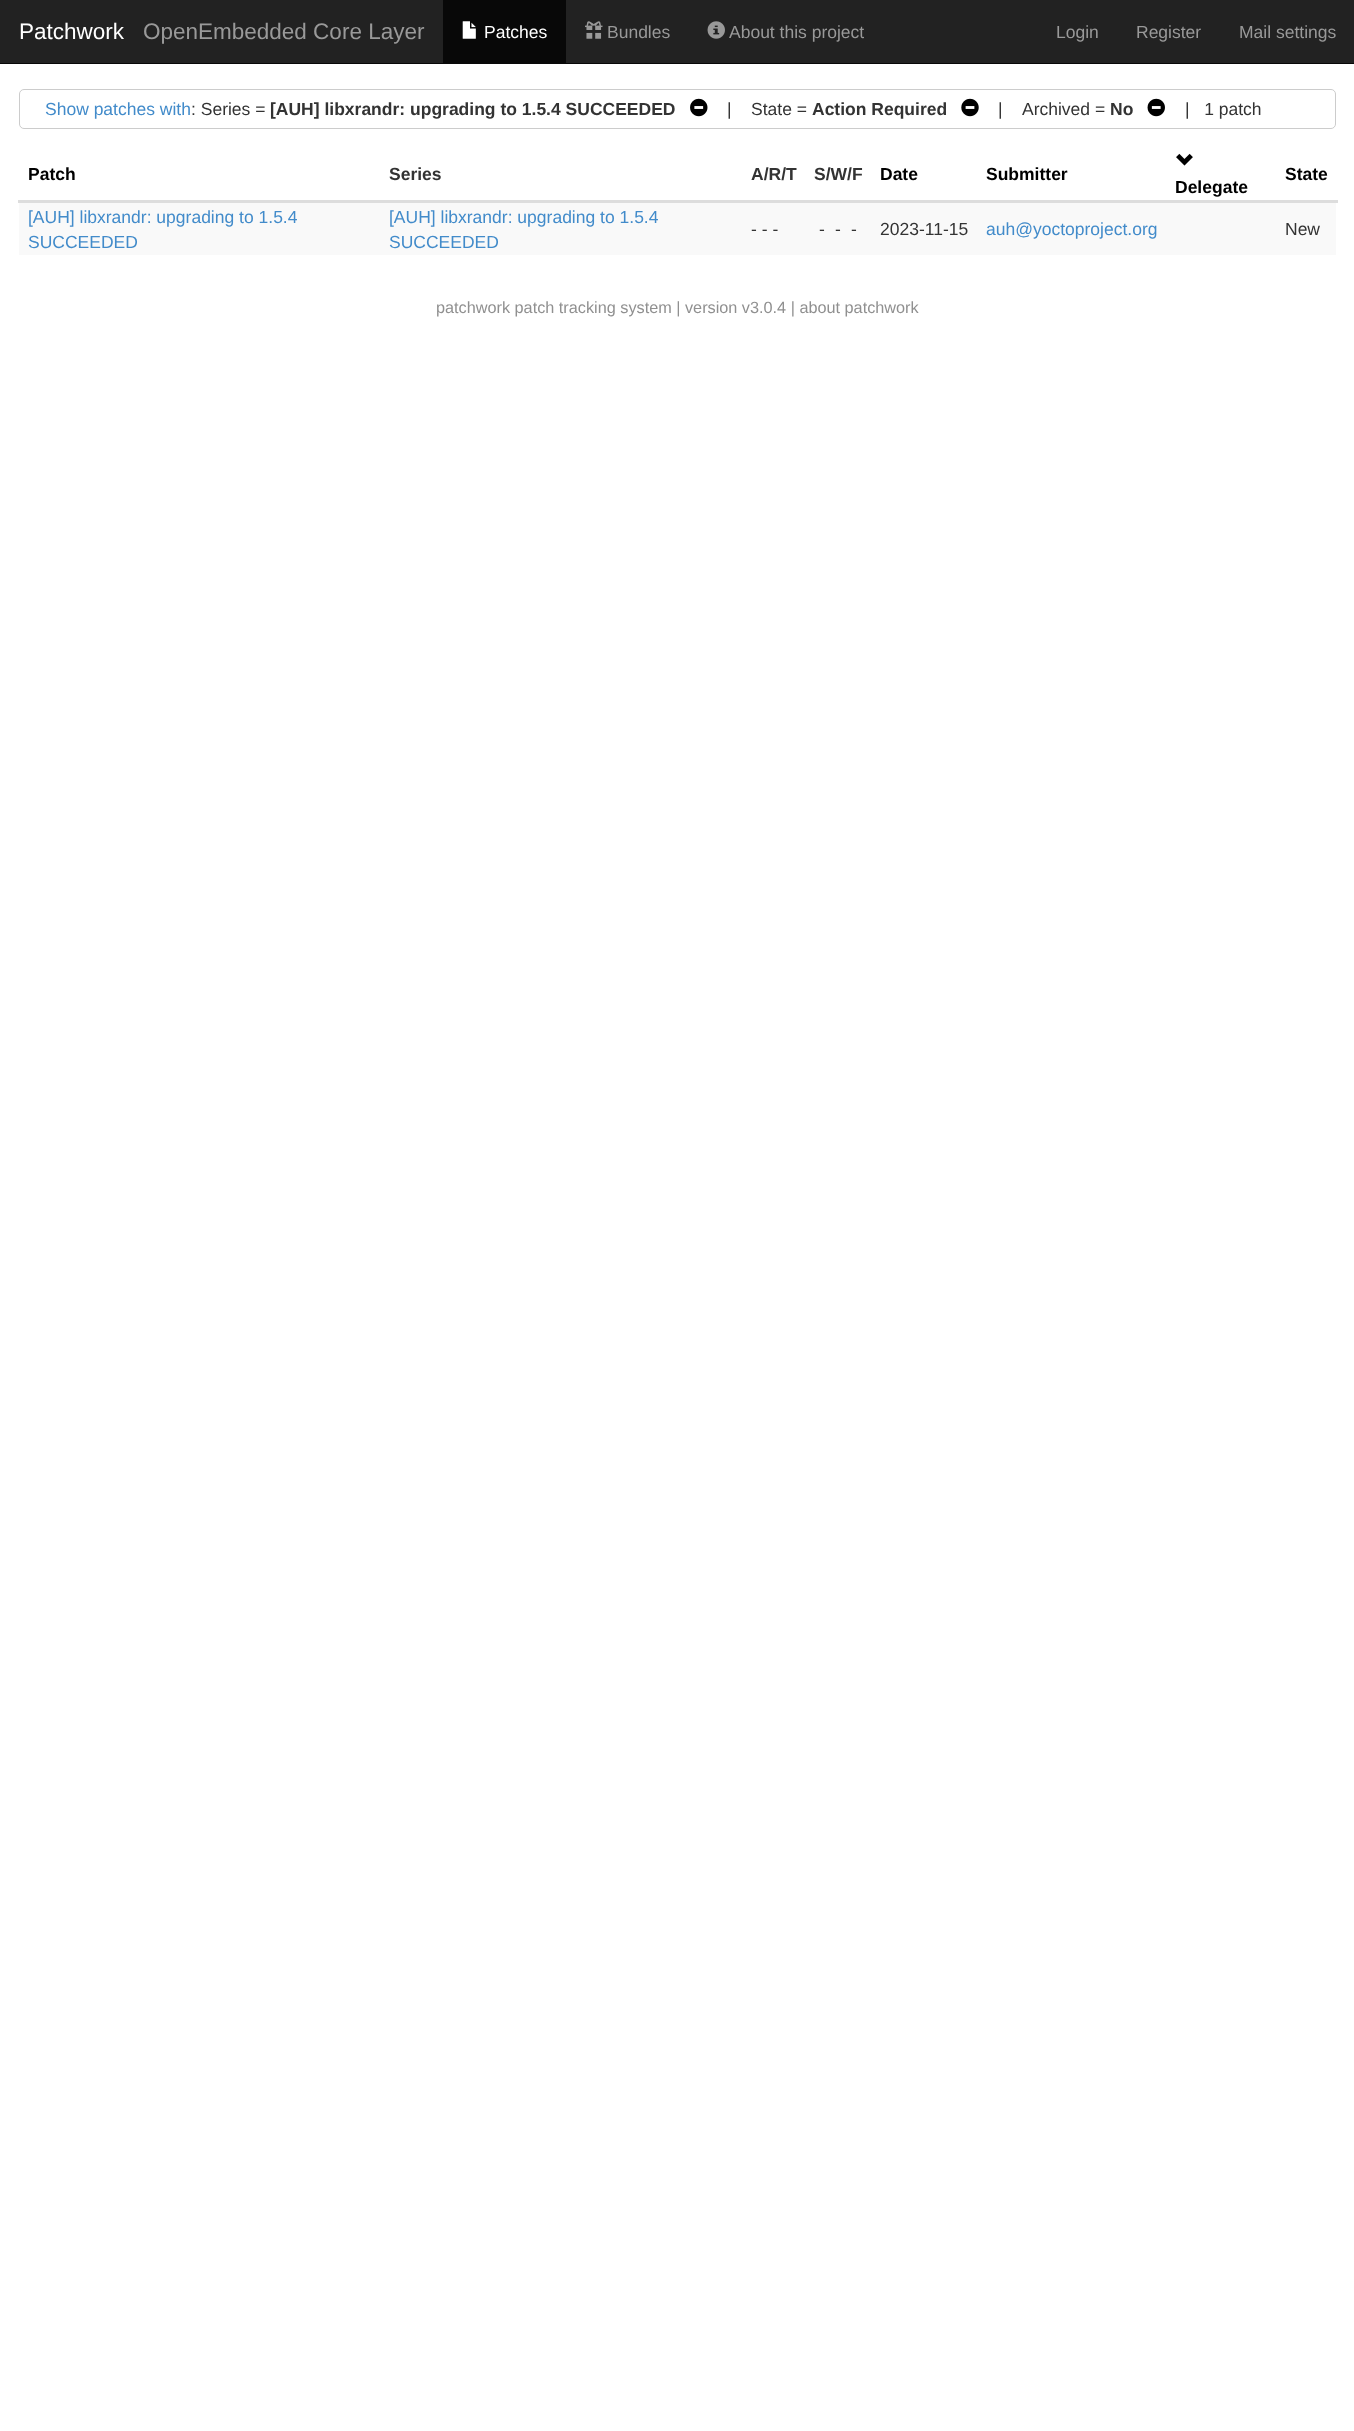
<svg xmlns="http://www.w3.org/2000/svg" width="1354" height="2431">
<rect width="100%" height="100%" fill="#fff"/>
<rect width="1354" height="63" fill="#222"/>
<rect y="63" width="1354" height="1" fill="#080808"/>
<text x="19" y="39" style="font-family:Liberation Sans;font-size:22.5px;fill:#fff">Patchwork</text>
<text x="143" y="39" style="font-family:Liberation Sans;font-size:22.5px;fill:#999">OpenEmbedded Core Layer</text>
<rect x="443" width="123" height="63" fill="#080808"/>
<image x="462" y="21" width="14" height="18" href="media/1.png"/>
<text x="484" y="38" style="font-family:Liberation Sans;font-size:17.5px;fill:#fff">Patches</text>
<image x="585" y="21" width="18" height="18" href="media/2.png"/>
<text x="607" y="38" style="font-family:Liberation Sans;font-size:17.5px;fill:#999">Bundles</text>
<image x="707" y="21" width="18" height="18" href="media/3.png"/>
<text x="729" y="38" style="font-family:Liberation Sans;font-size:17.5px;fill:#999">About this project</text>
<text x="1056" y="38" style="font-family:Liberation Sans;font-size:17.5px;fill:#999">Login</text>
<text x="1136" y="38" style="font-family:Liberation Sans;font-size:17.5px;fill:#999">Register</text>
<text x="1239" y="38" style="font-family:Liberation Sans;font-size:17.5px;fill:#999">Mail settings</text>
<rect x="19.5" y="89.5" width="1316" height="39" rx="4.5" fill="none" stroke="#ccc"/>
<text x="45" y="115" style="font-family:Liberation Sans;font-size:17.5px;fill:#428bca">Show patches with</text>
<text x="191" y="115" style="font-family:Liberation Sans;font-size:17.5px;fill:#333">: Series =</text>
<text x="270" y="115" style="font-family:Liberation Sans;font-size:17.5px;font-weight:bold;fill:#333">[AUH] libxrandr: upgrading to 1.5.4 SUCCEEDED</text>
<image x="690" y="98" width="18" height="19" href="media/4.png"/>
<text x="727" y="115" style="font-family:Liberation Sans;font-size:17.5px;fill:#333">|</text>
<text x="751" y="115" style="font-family:Liberation Sans;font-size:17.5px;fill:#333">State =</text>
<text x="812" y="115" style="font-family:Liberation Sans;font-size:17.5px;font-weight:bold;fill:#333">Action Required</text>
<image x="961" y="98" width="18" height="19" href="media/5.png"/>
<text x="998" y="115" style="font-family:Liberation Sans;font-size:17.5px;fill:#333">|</text>
<text x="1022" y="115" style="font-family:Liberation Sans;font-size:17.5px;fill:#333">Archived =</text>
<text x="1110" y="115" style="font-family:Liberation Sans;font-size:17.5px;font-weight:bold;fill:#333">No</text>
<image x="1147" y="98" width="18" height="19" href="media/6.png"/>
<text x="1185" y="115" style="font-family:Liberation Sans;font-size:17.5px;fill:#333" xml:space="preserve">|   1 patch</text>
<text x="28" y="180" style="font-family:Liberation Sans;font-size:17.5px;font-weight:bold;fill:#000">Patch</text>
<text x="389" y="180" style="font-family:Liberation Sans;font-size:17.5px;font-weight:bold;fill:#333">Series</text>
<text x="751" y="180" style="font-family:Liberation Sans;font-size:17.5px;font-weight:bold;fill:#333">A/R/T</text>
<text x="814" y="180" style="font-family:Liberation Sans;font-size:17.5px;font-weight:bold;fill:#333">S/W/F</text>
<text x="880" y="180" style="font-family:Liberation Sans;font-size:17.5px;font-weight:bold;fill:#000">Date</text>
<text x="986" y="180" style="font-family:Liberation Sans;font-size:17.5px;font-weight:bold;fill:#000">Submitter</text>
<rect x="18" y="200" width="1320" height="3" fill="#ddd"/>
<text x="1285" y="180" style="font-family:Liberation Sans;font-size:17.5px;font-weight:bold;fill:#000">State</text>
<image x="1176" y="153" width="17" height="13" href="media/7.png"/>
<text x="1175" y="193" style="font-family:Liberation Sans;font-size:17.5px;font-weight:bold;fill:#000">Delegate</text>
<rect x="19" y="203" width="1317" height="52" fill="#f9f9f9"/>
<text x="28" y="223" style="font-family:Liberation Sans;font-size:17.5px;fill:#428bca">[AUH] libxrandr: upgrading to 1.5.4</text>
<text x="28" y="248" style="font-family:Liberation Sans;font-size:17.5px;fill:#428bca">SUCCEEDED</text>
<text x="389" y="223" style="font-family:Liberation Sans;font-size:17.5px;fill:#428bca">[AUH] libxrandr: upgrading to 1.5.4</text>
<text x="389" y="248" style="font-family:Liberation Sans;font-size:17.5px;fill:#428bca">SUCCEEDED</text>
<text x="751" y="235" style="font-family:Liberation Sans;font-size:17.5px;fill:#333">- - -</text>
<text x="819" y="235" style="font-family:Liberation Sans;font-size:17.5px;fill:#333">-</text>
<text x="835" y="235" style="font-family:Liberation Sans;font-size:17.5px;fill:#333">-</text>
<text x="851" y="235" style="font-family:Liberation Sans;font-size:17.5px;fill:#333">-</text>
<text x="880" y="235" style="font-family:Liberation Sans;font-size:17.5px;fill:#333">2023-11-15</text>
<text x="986" y="235" style="font-family:Liberation Sans;font-size:17.5px;fill:#428bca">auh@yoctoproject.org</text>
<text x="1285" y="235" style="font-family:Liberation Sans;font-size:17.5px;fill:#333">New</text>
<text x="436" y="313" style="font-family:Liberation Sans;font-size:16.25px;fill:#909090">patchwork patch tracking system | version v3.0.4 | about patchwork</text>
</svg>
